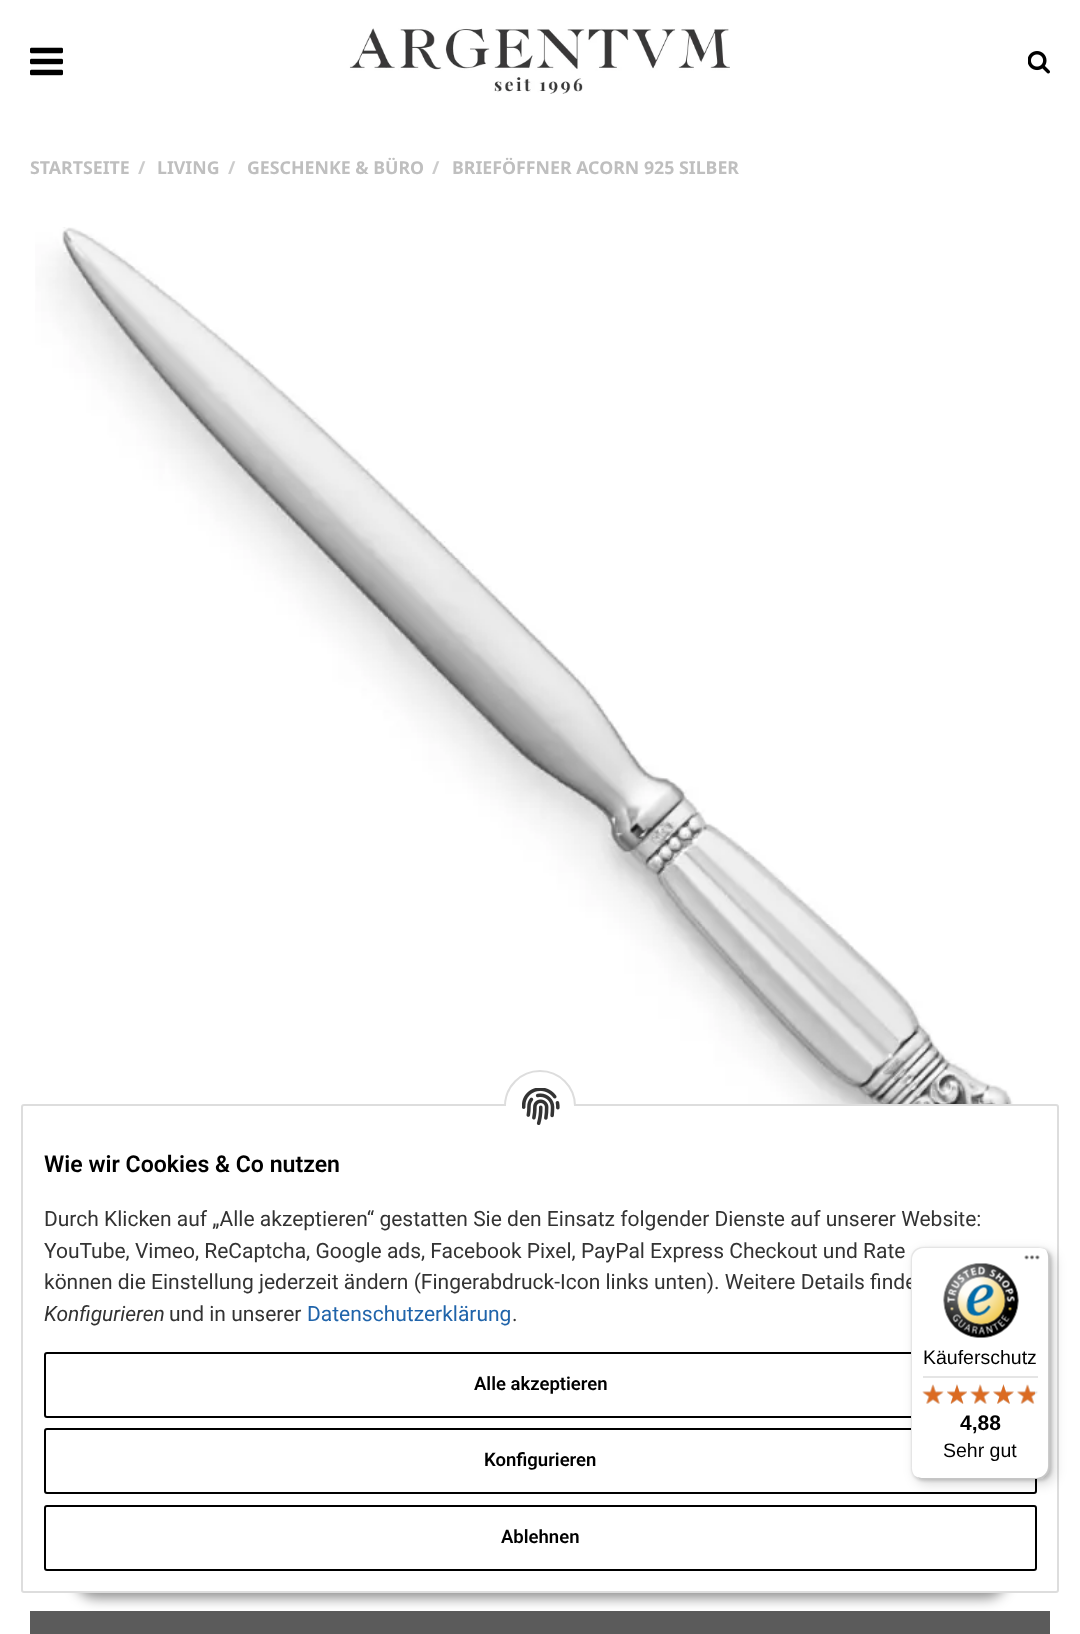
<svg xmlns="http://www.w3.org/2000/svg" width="1080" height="1634">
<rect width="100%" height="100%" fill="#fff"/>
<image x="30" y="47" width="33" height="29" href="media/1.png"/>
<image x="349" y="28" width="381" height="66" href="media/2.png"/>
<image x="1028" y="51" width="22" height="23" href="media/3.png"/>
<text x="30" y="174" style="font-family:Noto Sans;font-size:17.75px;font-weight:bold;fill:#bfbfbf">STARTSEITE</text>
<text x="138" y="174" style="font-family:Noto Sans;font-size:17.75px;font-weight:bold;fill:#ccc">/</text>
<text x="157" y="174" style="font-family:Noto Sans;font-size:17.75px;font-weight:bold;fill:#bfbfbf">LIVING</text>
<text x="228" y="174" style="font-family:Noto Sans;font-size:17.75px;font-weight:bold;fill:#ccc">/</text>
<text x="247" y="174" style="font-family:Noto Sans;font-size:17.75px;font-weight:bold;fill:#bfbfbf">GESCHENKE &amp; BÜRO</text>
<text x="432" y="174" style="font-family:Noto Sans;font-size:17.75px;font-weight:bold;fill:#ccc">/</text>
<text x="452" y="174" style="font-family:Noto Sans;font-size:17.75px;font-weight:bold;fill:#bfbfbf">BRIEFÖFFNER ACORN 925 SILBER</text>
<image x="35" y="227" width="993" height="877" href="media/4.png"/>
<rect x="30" y="1611" width="1020" height="23" fill="#5b5b5b"/>
<rect x="75" y="1556" width="932" height="42" rx="21" fill="#00000073" filter="blur(6.5px)"/>
<rect x="22" y="1105" width="1036" height="487" rx="2" fill="#fff" stroke="#ddd" stroke-width="2"/>
<rect x="505" y="1071" width="70" height="71" rx="35" fill="#fff" stroke="#ddd" stroke-width="2"/>
<rect x="504" y="1106" width="72" height="37" fill="#fff"/>
<image x="522" y="1088" width="38" height="37" href="media/5.png"/>
<text x="44" y="1172" style="font-family:Roboto;font-size:23.1px;font-weight:600;fill:#000">Wie wir Cookies &amp; Co nutzen</text>
<text x="44" y="1226" style="font-family:Roboto;font-size:21px;fill:#333">Durch Klicken auf „Alle akzeptieren“ gestatten Sie den Einsatz folgender Dienste auf unserer Website:</text>
<text x="44" y="1258" style="font-family:Roboto;font-size:21px;fill:#333">YouTube, Vimeo, ReCaptcha, Google ads, Facebook Pixel, PayPal Express Checkout und Rate</text>
<text x="44" y="1289" style="font-family:Roboto;font-size:21px;fill:#333">können die Einstellung jederzeit ändern (Fingerabdruck-Icon links unten). Weitere Details finde</text>
<text x="44" y="1321" style="font-family:Roboto;font-size:21px;font-style:italic;fill:#333">Konfigurieren</text>
<text x="169" y="1321" style="font-family:Roboto;font-size:21px;fill:#333">und in unserer</text>
<text x="307" y="1321" style="font-family:Roboto;font-size:21px;fill:#2064aa">Datenschutzerklärung</text>
<text x="512" y="1321" style="font-family:Roboto;font-size:21px;fill:#333">.</text>
<rect x="45" y="1353" width="991" height="64" rx="2" fill="none" stroke="#000" stroke-width="2"/>
<text x="474" y="1390" style="font-family:Roboto;font-size:18.5px;font-weight:600;fill:#000">Alle akzeptieren</text>
<rect x="45" y="1429" width="991" height="64" rx="2" fill="none" stroke="#000" stroke-width="2"/>
<text x="484" y="1466" style="font-family:Roboto;font-size:18.5px;font-weight:600;fill:#000">Konfigurieren</text>
<rect x="45" y="1506" width="991" height="64" rx="2" fill="none" stroke="#000" stroke-width="2"/>
<text x="501" y="1543" style="font-family:Roboto;font-size:18.5px;font-weight:600;fill:#000">Ablehnen</text>
<rect x="915" y="1251" width="140" height="233" rx="12" fill="#00000026" filter="blur(6px)"/>
<rect x="912" y="1248" width="140" height="233" rx="12" fill="#00000026" filter="blur(1.5px)"/>
<rect x="911" y="1247" width="139" height="232" rx="12" fill="#fff"/>
<path d="M924 1248h116l5 1c-2-1-5-2-7-2h-115c-7 0-12 5-12 12v208c0 3 1 6 3 8c-1-2-2-4-2-7v-208c0-7 5-12 12-12z" fill="#0000001a"/>
<path d="M917 1477c1 1 4 2 6 2h115c7 0 12-5 12-12v-208c0-4-2-7-4-9c1 2 2 4 2 7v209c0 6-5 12-12 12h-115z" fill="#00000033"/>
<path d="M915 1476c2 2 5 3 8 3h115c7 0 12-5 12-12v-208c0-3-1-6-3-8c1 2 2 4 2 7v208c0 7-5 12-12 12h-115c-3 0-5-1-7-2z" fill="#32323233"/>
<path d="M915 1476c2 2 5 3 8 3h115c7 0 12-5 12-12v-208c0-3-1-6-3-8c1 2 2 4 2 7v208c0 7-5 12-12 12h-115c-3 0-5-1-7-2z" fill="#ffffff4d"/>
<image x="1024" y="1255" width="16" height="5" href="media/6.png"/>
<image x="943" y="1263" width="76" height="75" href="media/7.png"/>
<text x="923" y="1364" style="font-family:Liberation Sans;font-size:19.5px;fill:#000">Käuferschutz</text>
<rect x="923" y="1376" width="115" height="2" fill="#e5e5e5"/>
<image x="923" y="1385" width="20" height="19" href="media/13.png"/>
<image x="922" y="1384" width="22" height="20" href="media/8.png"/>
<image x="947" y="1384" width="20" height="20" href="media/14.png"/>
<image x="947" y="1384" width="20" height="20" href="media/9.png"/>
<image x="970" y="1384" width="20" height="20" href="media/15.png"/>
<image x="970" y="1384" width="20" height="20" href="media/10.png"/>
<image x="993" y="1384" width="21" height="20" href="media/16.png"/>
<image x="993" y="1384" width="21" height="20" href="media/11.png"/>
<image x="1017" y="1385" width="21" height="19" href="media/17.png"/>
<image x="1017" y="1384" width="18" height="20" href="media/12.png"/>
<text x="960" y="1430" style="font-family:Liberation Sans;font-size:21px;font-weight:bold;fill:#000">4,88</text>
<text x="943" y="1457" style="font-family:Liberation Sans;font-size:19.5px;fill:#000">Sehr gut</text>
</svg>
